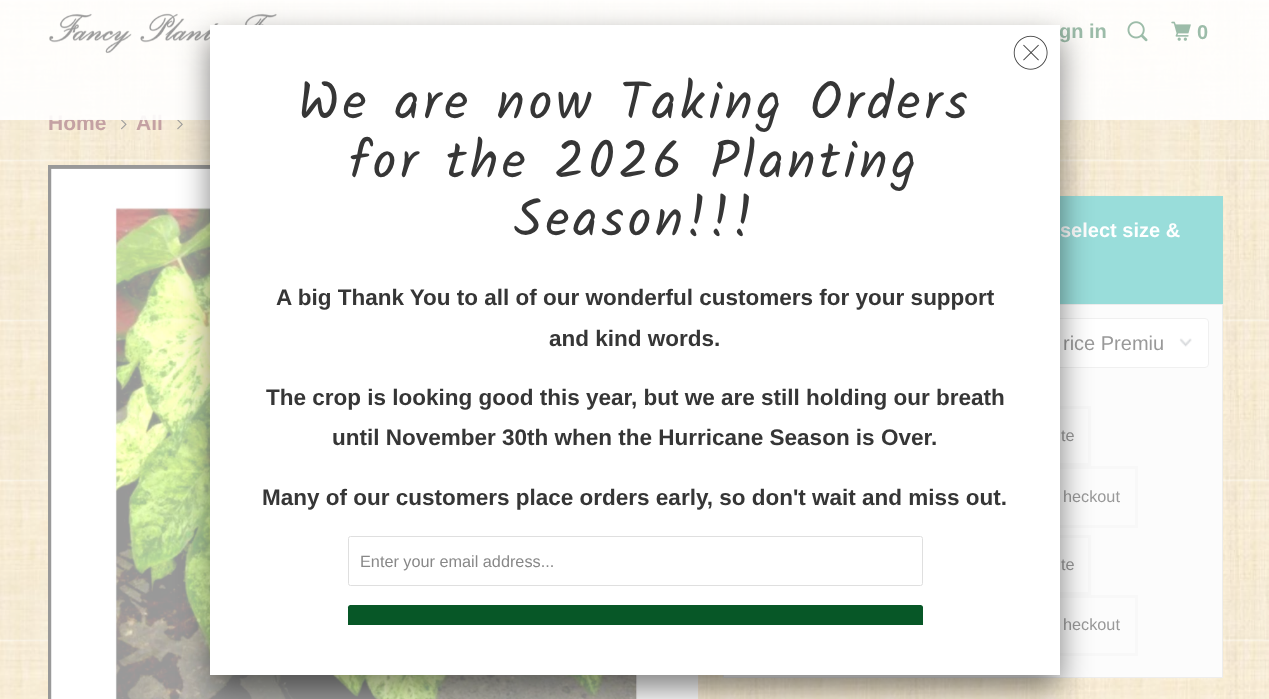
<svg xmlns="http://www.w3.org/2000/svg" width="1269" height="699">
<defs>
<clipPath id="clip1"><rect x="48" y="165" width="650" height="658"/></clipPath>
</defs>
<rect width="100%" height="100%" fill="#fff"/>
<image x="0" y="0" width="1269" height="699" href="media/1.png"/>
<text x="48" y="130" style="font-family:Liberation Sans;font-size:21px;font-weight:bold;fill:#c4a1a3">Home</text>
<image x="120" y="119" width="7" height="11" href="media/5.png"/>
<text x="136" y="130" style="font-family:Liberation Sans;font-size:21px;font-weight:bold;fill:#c4a1a3">All</text>
<image x="177" y="119" width="6" height="11" href="media/6.png"/>
<rect width="1269" height="120" fill="#ffffffe6"/>
<image x="49" y="13" width="228" height="41" href="media/2.png"/>
<text x="1059" y="38" style="font-family:Liberation Sans;font-size:20px;font-weight:bold;fill:#9cbca9">gn in</text>
<image x="1127" y="21" width="21" height="21" href="media/3.png"/>
<image x="1171" y="21" width="20" height="20" href="media/4.png"/>
<text x="1197" y="39" style="font-family:Liberation Sans;font-size:20px;font-weight:bold;fill:#9cbca9">0</text>
<g clip-path="url(#clip1)">
<rect x="50" y="167" width="653" height="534" fill="none" stroke="#999" stroke-width="4"/>
</g>
<image x="51" y="168" width="647" height="531" href="media/7.png"/>
<rect x="1060" y="196" width="163" height="108" fill="#99ddda"/>
<text x="1060" y="237" style="font-family:Liberation Sans;font-size:20px;font-weight:bold;fill:#fff">select size &amp;</text>
<rect x="723.5" y="304.5" width="499" height="373" fill="#fcfcfc" stroke="#ededed"/>
<rect x="899" y="318" width="310" height="50" rx="4" fill="#fff"/>
<image x="1179" y="338" width="13" height="9" href="media/8.png"/>
<rect x="899.5" y="318.5" width="309" height="49" rx="3.5" fill="none" stroke="#f0f0f0"/>
<text x="1063" y="350" style="font-family:Liberation Sans;font-size:20px;fill:#999">rice Premiu</text>
<rect x="900.5" y="407.5" width="189" height="57" fill="none" stroke="#f8f8f8" stroke-width="3"/>
<text x="1061" y="441" style="font-family:Liberation Sans;font-size:16.25px;fill:#999">te</text>
<rect x="900.5" y="467.5" width="236" height="59" fill="none" stroke="#f8f8f8" stroke-width="3"/>
<text x="1063" y="502" style="font-family:Liberation Sans;font-size:16.25px;fill:#999">heckout</text>
<rect x="900.5" y="536.5" width="189" height="57" fill="none" stroke="#f8f8f8" stroke-width="3"/>
<text x="1061" y="570" style="font-family:Liberation Sans;font-size:16.25px;fill:#999">te</text>
<rect x="900.5" y="596.5" width="236" height="58" fill="none" stroke="#f8f8f8" stroke-width="3"/>
<text x="1063" y="630" style="font-family:Liberation Sans;font-size:16.25px;fill:#999">heckout</text>
<rect x="210" y="38" width="850" height="650" fill="#00000080" filter="blur(15.5px)"/>
<rect x="210" y="25" width="850" height="650" fill="#fff"/>
<image x="1013" y="35" width="35" height="35" href="media/9.png"/>
<text x="298" y="119" style="font-family:Kalam;font-size:52.5px;letter-spacing:3.75px;fill:#363636">We are now Taking Orders</text>
<text x="349" y="178" style="font-family:Kalam;font-size:52.5px;letter-spacing:3.75px;fill:#363636">for the 2026 Planting</text>
<text x="514" y="236" style="font-family:Kalam;font-size:52.5px;letter-spacing:3.75px;fill:#363636">Season!!!</text>
<text x="276" y="305" style="font-family:Liberation Sans;font-size:22.5px;font-weight:bold;fill:#363636">A big Thank You to all of our wonderful customers for your support</text>
<text x="549" y="346" style="font-family:Liberation Sans;font-size:22.5px;font-weight:bold;fill:#363636">and kind words.</text>
<text x="266" y="405" style="font-family:Liberation Sans;font-size:22.5px;font-weight:bold;fill:#363636">The crop is looking good this year, but we are still holding our breath</text>
<text x="332" y="445" style="font-family:Liberation Sans;font-size:22.5px;font-weight:bold;fill:#363636">until November 30th when the Hurricane Season is Over.</text>
<text x="262" y="505" style="font-family:Liberation Sans;font-size:22.5px;font-weight:bold;fill:#363636">Many of our customers place orders early, so don't wait and miss out.</text>
<rect x="348.5" y="536.5" width="574" height="49" rx="2" fill="none" stroke="#dfdfdf"/>
<text x="360" y="567" style="font-family:Liberation Sans;font-size:16.25px;fill:#888">Enter your email address...</text>
<path d="M350.5 605h570c1.5 0 2.5 1 2.5 2.5v17.5h-575v-17.5c0-1.5 1-2.5 2.5-2.5z" fill="#075727"/>
</svg>
